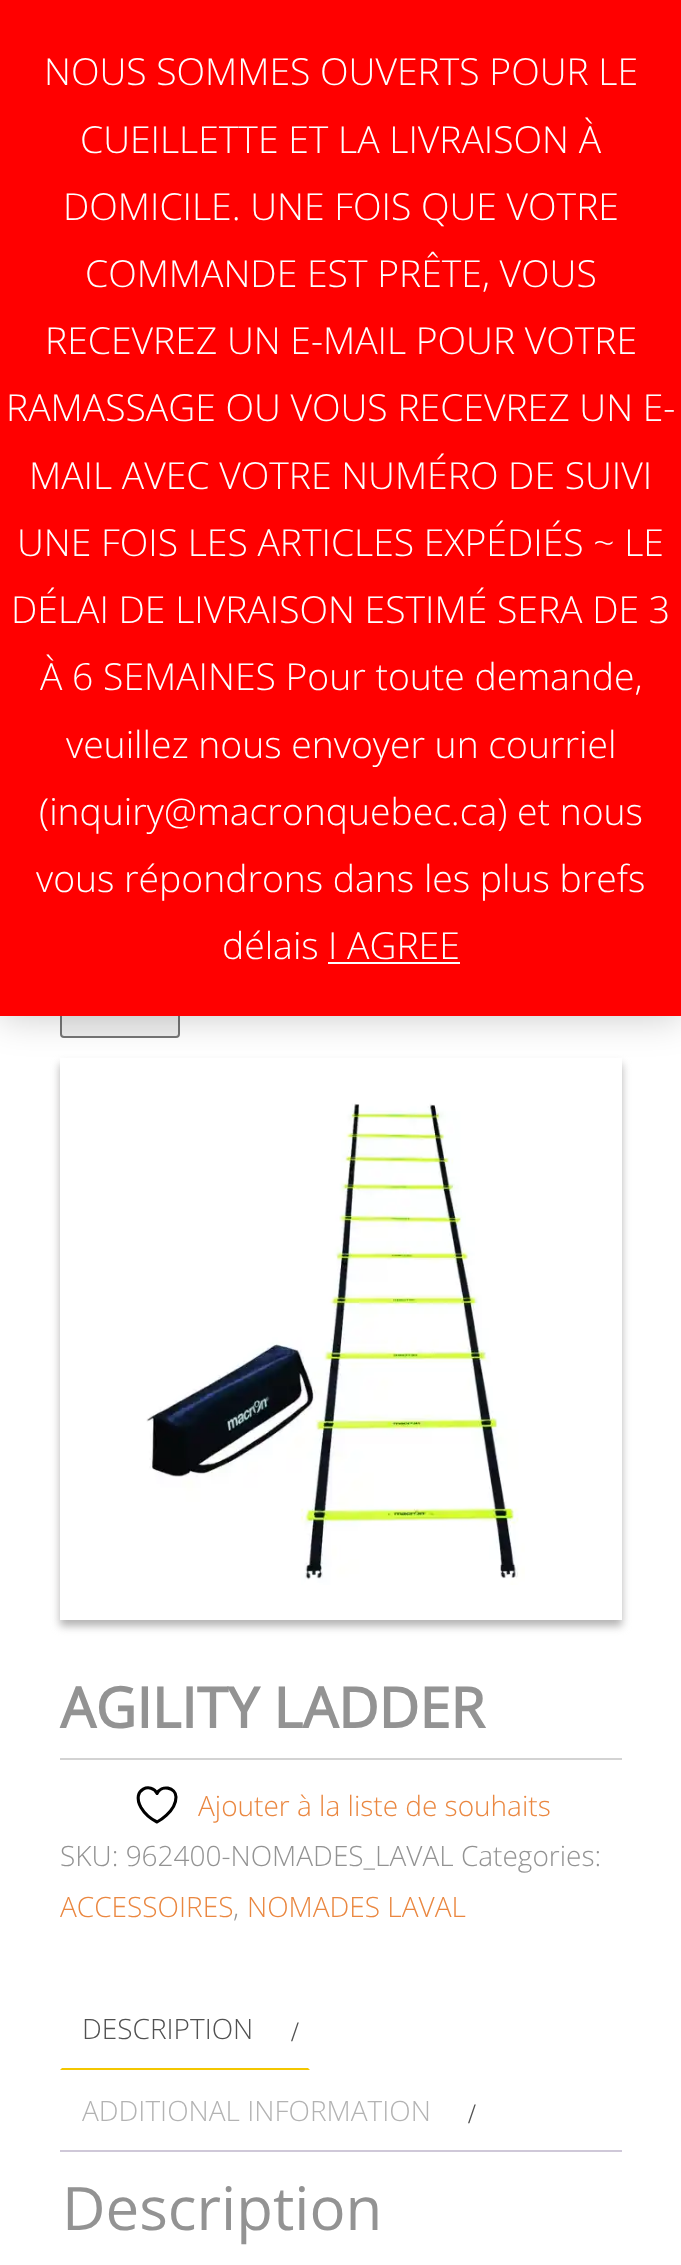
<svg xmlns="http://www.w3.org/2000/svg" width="681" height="2265">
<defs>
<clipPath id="clip1"><path d="M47 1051h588v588h-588zm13 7h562v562h-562z" clip-rule="evenodd"/></clipPath>
</defs>
<rect width="100%" height="100%" fill="#fff"/>
<rect x="61" y="977" width="118" height="60" rx="3" fill="#efefef" stroke="#767676" stroke-width="2"/>
<rect y="2" width="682" height="1016" fill="#00000033" filter="blur(18.5px)"/>
<rect width="681" height="1016" fill="#f00"/>
<text x="44" y="85" style="font-family:Open Sans;font-size:37.3px;font-weight:300;fill:#fff">NOUS SOMMES OUVERTS POUR LE</text>
<text x="80" y="153" style="font-family:Open Sans;font-size:37.3px;font-weight:300;fill:#fff">CUEILLETTE ET LA LIVRAISON À</text>
<text x="63" y="220" style="font-family:Open Sans;font-size:37.3px;font-weight:300;fill:#fff">DOMICILE. UNE FOIS QUE VOTRE</text>
<text x="85" y="287" style="font-family:Open Sans;font-size:37.3px;font-weight:300;fill:#fff">COMMANDE EST PRÊTE, VOUS</text>
<text x="45" y="354" style="font-family:Open Sans;font-size:37.3px;font-weight:300;fill:#fff">RECEVREZ UN E-MAIL POUR VOTRE</text>
<text x="6" y="421" style="font-family:Open Sans;font-size:37.3px;font-weight:300;fill:#fff">RAMASSAGE OU VOUS RECEVREZ UN E-</text>
<text x="29" y="489" style="font-family:Open Sans;font-size:37.3px;font-weight:300;fill:#fff">MAIL AVEC VOTRE NUMÉRO DE SUIVI</text>
<text x="17" y="556" style="font-family:Open Sans;font-size:37.3px;font-weight:300;fill:#fff">UNE FOIS LES ARTICLES EXPÉDIÉS ~ LE</text>
<text x="11" y="623" style="font-family:Open Sans;font-size:37.3px;font-weight:300;fill:#fff">DÉLAI DE LIVRAISON ESTIMÉ SERA DE 3</text>
<text x="40" y="690" style="font-family:Open Sans;font-size:37.3px;font-weight:300;fill:#fff">À 6 SEMAINES Pour toute demande,</text>
<text x="66" y="758" style="font-family:Open Sans;font-size:37.3px;font-weight:300;fill:#fff">veuillez nous envoyer un courriel</text>
<text x="39" y="825" style="font-family:Open Sans;font-size:37.3px;font-weight:300;fill:#fff">(inquiry@macronquebec.ca) et nous</text>
<text x="36" y="892" style="font-family:Open Sans;font-size:37.3px;font-weight:300;fill:#fff">vous répondrons dans les plus brefs</text>
<text x="222" y="959" style="font-family:Open Sans;font-size:37.3px;font-weight:300;fill:#fff">délais</text>
<text x="328" y="959" style="font-family:Open Sans;font-size:37.3px;font-weight:300;fill:#fff">I AGREE</text>
<rect x="328" y="962" width="132" height="2" fill="#fcfbfe"/>
<g clip-path="url(#clip1)">
<rect x="60" y="1064" width="562" height="562" fill="#b3b2b2" filter="blur(4px)"/>
</g>
<image x="146" y="1103" width="379" height="482" href="media/1.png"/>
<rect x="60" y="1758" width="562" height="2" fill="#d3d3d3"/>
<text x="60" y="1728" style="font-family:Open Sans;font-size:56px;font-weight:bold;fill:#939393">AGILITY LADDER</text>
<path d="M176 1797c0-10-15-12.5-19-3.5c-5-11.5-26.5-5-16 14c3.5 6 10 11.5 16 14.5c0 0 19-10 19-25z" fill="none" stroke="#000" stroke-width="3.1" stroke-linecap="round" stroke-linejoin="round"/>
<text x="198" y="1816" style="font-family:Open Sans;font-size:28px;font-weight:300;fill:#ea8740">Ajouter à la liste de souhaits</text>
<text x="60" y="1866" style="font-family:Open Sans;font-size:28px;font-weight:300;fill:#939393">SKU: 962400-NOMADES_LAVAL Categories:</text>
<text x="60" y="1917" style="font-family:Open Sans;font-size:28px;font-weight:300;fill:#ea8740">ACCESSOIRES</text>
<text x="233" y="1917" style="font-family:Open Sans;font-size:28px;font-weight:300;fill:#939393">,</text>
<text x="247" y="1917" style="font-family:Open Sans;font-size:28px;font-weight:300;fill:#ea8740">NOMADES LAVAL</text>
<path d="M310 2070h-250l2-2h246z" fill="#f4c700"/>
<text x="82" y="2039" style="font-family:Open Sans;font-size:28px;font-weight:300;fill:#515151">DESCRIPTION</text>
<text x="291" y="2041" style="font-family:Liberation Serif;font-size:28px;fill:#515151">/</text>
<text x="82" y="2121" style="font-family:Open Sans;font-size:28px;font-weight:300;fill:#b3b3b3">ADDITIONAL INFORMATION</text>
<text x="468" y="2123" style="font-family:Liberation Serif;font-size:28px;fill:#515151">/</text>
<rect x="60" y="2150" width="562" height="2" fill="#cfc8d8"/>
<text x="62" y="2230" style="font-family:Open Sans;font-size:60px;fill:#939393">Description</text>
</svg>
